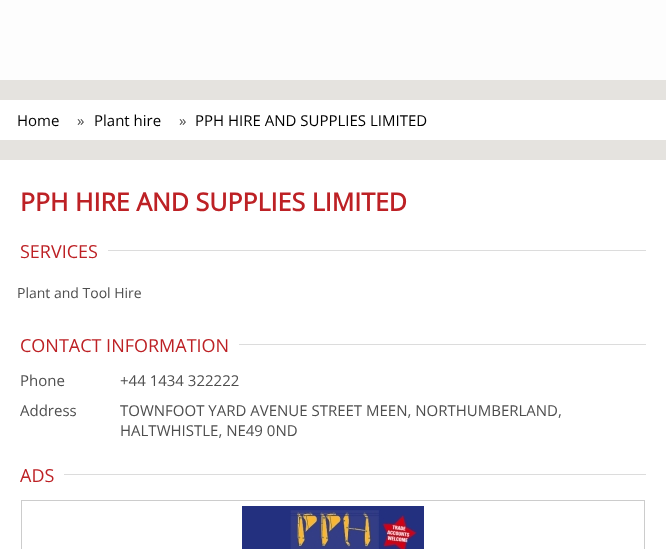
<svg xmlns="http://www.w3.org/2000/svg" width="666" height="549">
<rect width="100%" height="100%" fill="#e5e3df"/>
<rect width="666" height="80" fill="#fdfdfd"/>
<rect y="100" width="666" height="40" fill="#fff"/>
<text x="17" y="126" style="font-family:Open Sans;font-size:15px;fill:#000">Home</text>
<text x="77" y="126" style="font-family:Open Sans;font-size:15px;fill:#4e4e4e">»</text>
<text x="94" y="126" style="font-family:Open Sans;font-size:15px;fill:#000">Plant hire</text>
<text x="179" y="126" style="font-family:Open Sans;font-size:15px;fill:#4e4e4e">»</text>
<text x="195" y="126" style="font-family:Open Sans;font-size:15px;fill:#000">PPH HIRE AND SUPPLIES LIMITED</text>
<rect y="160" width="666" height="389" fill="#fff"/>
<text x="20" y="211" style="font-family:Open Sans;font-size:25px;font-weight:bold;fill:#bd2125">PPH HIRE AND SUPPLIES LIMITED</text>
<text x="20" y="258" style="font-family:Open Sans;font-size:18px;fill:#bd2125">SERVICES</text>
<rect x="108" y="250" width="538" height="1" fill="#dcdcdc"/>
<text x="17" y="298" style="font-family:Open Sans;font-size:14px;fill:#4e4e4e">Plant and Tool Hire</text>
<text x="20" y="352" style="font-family:Open Sans;font-size:18px;fill:#bd2125">CONTACT INFORMATION</text>
<rect x="239" y="344" width="407" height="1" fill="#dcdcdc"/>
<text x="20" y="386" style="font-family:Open Sans;font-size:15px;fill:#4e4e4e">Phone</text>
<text x="120" y="386" style="font-family:Open Sans;font-size:15px;fill:#4e4e4e">+44 1434 322222</text>
<text x="20" y="416" style="font-family:Open Sans;font-size:15px;fill:#4e4e4e">Address</text>
<text x="120" y="416" style="font-family:Open Sans;font-size:15px;fill:#4e4e4e">TOWNFOOT YARD AVENUE STREET MEEN, NORTHUMBERLAND,</text>
<text x="120" y="436" style="font-family:Open Sans;font-size:15px;fill:#4e4e4e">HALTWHISTLE, NE49 0ND</text>
<text x="20" y="482" style="font-family:Open Sans;font-size:18px;fill:#bd2125">ADS</text>
<rect x="64" y="474" width="582" height="1" fill="#dcdcdc"/>
<rect x="21.5" y="500.5" width="623" height="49" fill="none" stroke="#ccc"/>
<image x="242" y="506" width="182" height="43" href="media/1.png"/>
</svg>
